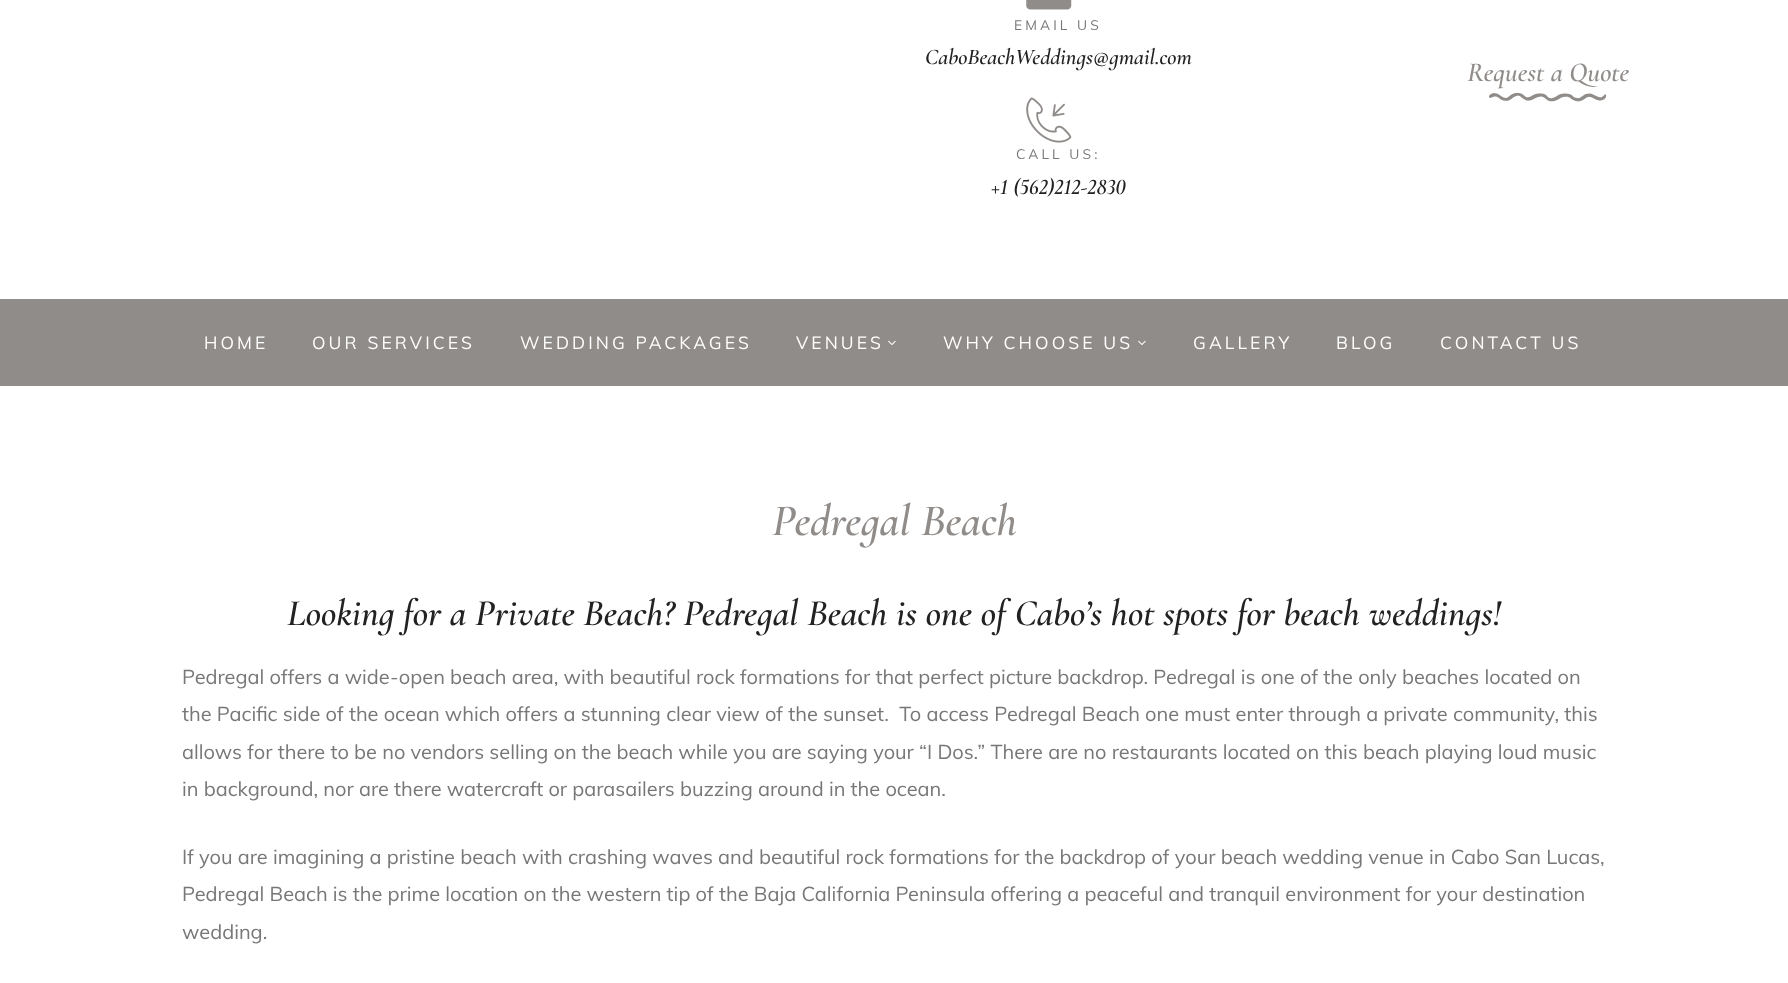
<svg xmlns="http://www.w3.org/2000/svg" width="1788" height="983">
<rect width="100%" height="100%" fill="#fff"/>
<image x="1026" y="0" width="46" height="10" href="media/1.png"/>
<text x="1014" y="30" style="font-family:Muli;font-size:13.75px;letter-spacing:3.1px;fill:#777">EMAIL US</text>
<text x="925" y="64" style="font-family:Cormorant Infant;font-size:22.5px;font-weight:600;font-style:italic;fill:#222">CaboBeachWeddings@gmail.com</text>
<image x="1026" y="97" width="46" height="46" href="media/2.png"/>
<text x="1016" y="159" style="font-family:Muli;font-size:13.75px;letter-spacing:3.1px;fill:#777">CALL US:</text>
<text x="991" y="194" style="font-family:Cormorant Infant;font-size:22.5px;font-weight:600;font-style:italic;fill:#222">+1 (562)212-2830</text>
<text x="1467" y="81" style="font-family:Cormorant Infant;font-size:27.5px;font-weight:600;font-style:italic;fill:#908c8a">Request a Quote</text>
<image x="1489" y="93" width="117" height="9" href="media/3.png"/>
<rect y="299" width="1788" height="87" fill="#908c8a"/>
<text x="204" y="349" style="font-family:Muli;font-size:17.5px;letter-spacing:3.1px;fill:#fff">HOME</text>
<text x="312" y="349" style="font-family:Muli;font-size:17.5px;letter-spacing:3.1px;fill:#fff">OUR SERVICES</text>
<text x="520" y="349" style="font-family:Muli;font-size:17.5px;letter-spacing:3.1px;fill:#fff">WEDDING PACKAGES</text>
<text x="796" y="349" style="font-family:Muli;font-size:17.5px;letter-spacing:3.1px;fill:#fff">VENUES</text>
<image x="888" y="340" width="8" height="6" href="media/4.png"/>
<text x="943" y="349" style="font-family:Muli;font-size:17.5px;letter-spacing:3.1px;fill:#fff">WHY CHOOSE US</text>
<image x="1138" y="340" width="8" height="6" href="media/4.png"/>
<text x="1193" y="349" style="font-family:Muli;font-size:17.5px;letter-spacing:3.1px;fill:#fff">GALLERY</text>
<text x="1336" y="349" style="font-family:Muli;font-size:17.5px;letter-spacing:3.1px;fill:#fff">BLOG</text>
<text x="1440" y="349" style="font-family:Muli;font-size:17.5px;letter-spacing:3.1px;fill:#fff">CONTACT US</text>
<text x="772" y="535" style="font-family:Cormorant Infant;font-size:45px;font-weight:600;font-style:italic;fill:#908c8a">Pedregal Beach</text>
<text x="287" y="625" style="font-family:Cormorant Infant;font-size:37.5px;font-weight:600;font-style:italic;fill:#222">Looking for a Private Beach? Pedregal Beach is one of Cabo’s hot spots for beach weddings!</text>
<text x="182" y="684" style="font-family:Muli;font-size:20px;fill:#777">Pedregal offers a wide-open beach area, with beautiful rock formations for that perfect picture backdrop. Pedregal is one of the only beaches located on</text>
<text x="182" y="721" style="font-family:Muli;font-size:20px;fill:#777" xml:space="preserve">the Pacific side of the ocean which offers a stunning clear view of the sunset.  To access Pedregal Beach one must enter through a private community, this</text>
<text x="182" y="759" style="font-family:Muli;font-size:20px;fill:#777">allows for there to be no vendors selling on the beach while you are saying your “I Dos.” There are no restaurants located on this beach playing loud music</text>
<text x="182" y="796" style="font-family:Muli;font-size:20px;fill:#777">in background, nor are there watercraft or parasailers buzzing around in the ocean.</text>
<text x="182" y="864" style="font-family:Muli;font-size:20px;fill:#777">If you are imagining a pristine beach with crashing waves and beautiful rock formations for the backdrop of your beach wedding venue in Cabo San Lucas,</text>
<text x="182" y="901" style="font-family:Muli;font-size:20px;fill:#777">Pedregal Beach is the prime location on the western tip of the Baja California Peninsula offering a peaceful and tranquil environment for your destination</text>
<text x="182" y="939" style="font-family:Muli;font-size:20px;fill:#777">wedding.</text>
</svg>
